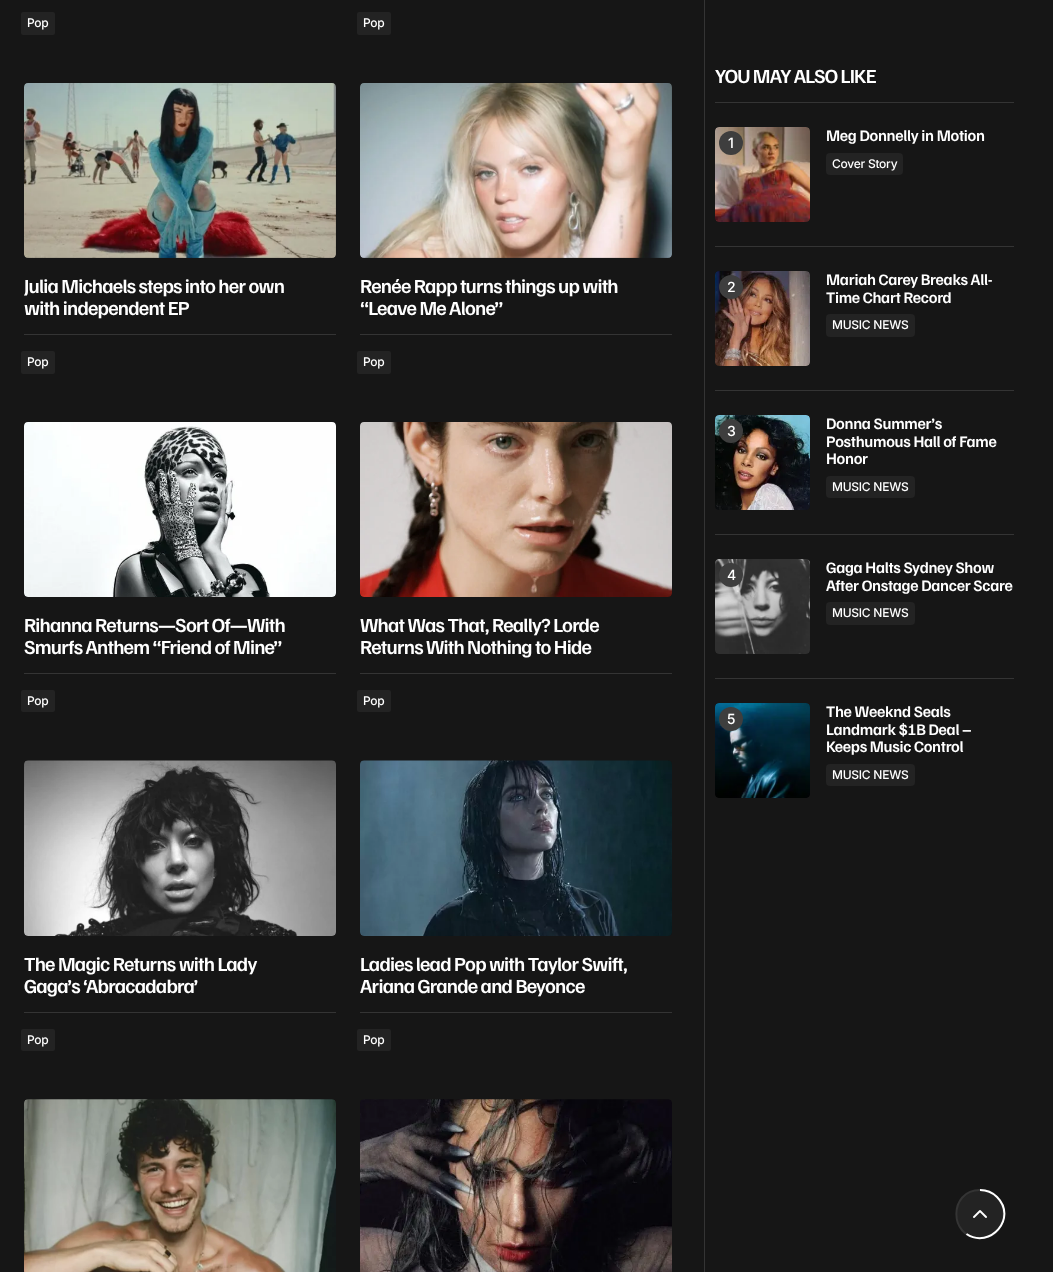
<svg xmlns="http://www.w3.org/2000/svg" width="1053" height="1272">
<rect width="100%" height="100%" fill="#161616"/>
<rect x="21" y="12" width="34" height="23" rx="2" fill="#232323"/>
<text x="27" y="27" style="font-family:Inter;font-size:12px;font-weight:500;letter-spacing:-0.25px;fill:#fff">Pop</text>
<rect x="357" y="12" width="34" height="23" rx="2" fill="#232323"/>
<text x="363" y="27" style="font-family:Inter;font-size:12px;font-weight:500;letter-spacing:-0.25px;fill:#fff">Pop</text>
<image x="24" y="83" width="312" height="175" href="media/1.png"/>
<text x="24" y="293" style="font-family:Familjen Grotesk;font-size:20px;font-weight:600;letter-spacing:-0.8px;fill:#fff">Julia Michaels steps into her own</text>
<text x="24" y="315" style="font-family:Familjen Grotesk;font-size:20px;font-weight:600;letter-spacing:-0.8px;fill:#fff">with independent EP</text>
<rect x="24" y="334" width="312" height="1" fill="#343434"/>
<rect x="21" y="351" width="34" height="23" rx="2" fill="#232323"/>
<text x="27" y="366" style="font-family:Inter;font-size:12px;font-weight:500;letter-spacing:-0.25px;fill:#fff">Pop</text>
<image x="360" y="83" width="312" height="175" href="media/2.png"/>
<text x="360" y="293" style="font-family:Familjen Grotesk;font-size:20px;font-weight:600;letter-spacing:-0.8px;fill:#fff">Renée Rapp turns things up with</text>
<text x="360" y="315" style="font-family:Familjen Grotesk;font-size:20px;font-weight:600;letter-spacing:-0.8px;fill:#fff">“Leave Me Alone”</text>
<rect x="360" y="334" width="312" height="1" fill="#343434"/>
<rect x="357" y="351" width="34" height="23" rx="2" fill="#232323"/>
<text x="363" y="366" style="font-family:Inter;font-size:12px;font-weight:500;letter-spacing:-0.25px;fill:#fff">Pop</text>
<image x="24" y="422" width="312" height="175" href="media/3.png"/>
<text x="24" y="632" style="font-family:Familjen Grotesk;font-size:20px;font-weight:600;letter-spacing:-0.8px;fill:#fff">Rihanna Returns—Sort Of—With</text>
<text x="24" y="654" style="font-family:Familjen Grotesk;font-size:20px;font-weight:600;letter-spacing:-0.8px;fill:#fff">Smurfs Anthem “Friend of Mine”</text>
<rect x="24" y="673" width="312" height="1" fill="#343434"/>
<rect x="21" y="690" width="34" height="22" rx="2" fill="#232323"/>
<text x="27" y="705" style="font-family:Inter;font-size:12px;font-weight:500;letter-spacing:-0.25px;fill:#fff">Pop</text>
<image x="360" y="422" width="312" height="175" href="media/4.png"/>
<text x="360" y="632" style="font-family:Familjen Grotesk;font-size:20px;font-weight:600;letter-spacing:-0.8px;fill:#fff">What Was That, Really? Lorde</text>
<text x="360" y="654" style="font-family:Familjen Grotesk;font-size:20px;font-weight:600;letter-spacing:-0.8px;fill:#fff">Returns With Nothing to Hide</text>
<rect x="360" y="673" width="312" height="1" fill="#343434"/>
<rect x="357" y="690" width="34" height="22" rx="2" fill="#232323"/>
<text x="363" y="705" style="font-family:Inter;font-size:12px;font-weight:500;letter-spacing:-0.25px;fill:#fff">Pop</text>
<image x="24" y="760" width="312" height="176" href="media/5.png"/>
<text x="24" y="971" style="font-family:Familjen Grotesk;font-size:20px;font-weight:600;letter-spacing:-0.8px;fill:#fff">The Magic Returns with Lady</text>
<text x="24" y="993" style="font-family:Familjen Grotesk;font-size:20px;font-weight:600;letter-spacing:-0.8px;fill:#fff">Gaga’s ‘Abracadabra’</text>
<rect x="24" y="1012" width="312" height="1" fill="#343434"/>
<rect x="21" y="1029" width="34" height="22" rx="2" fill="#232323"/>
<text x="27" y="1044" style="font-family:Inter;font-size:12px;font-weight:500;letter-spacing:-0.25px;fill:#fff">Pop</text>
<image x="360" y="760" width="312" height="176" href="media/6.png"/>
<text x="360" y="971" style="font-family:Familjen Grotesk;font-size:20px;font-weight:600;letter-spacing:-0.8px;fill:#fff">Ladies lead Pop with Taylor Swift,</text>
<text x="360" y="993" style="font-family:Familjen Grotesk;font-size:20px;font-weight:600;letter-spacing:-0.8px;fill:#fff">Ariana Grande and Beyonce</text>
<rect x="360" y="1012" width="312" height="1" fill="#343434"/>
<rect x="357" y="1029" width="34" height="22" rx="2" fill="#232323"/>
<text x="363" y="1044" style="font-family:Inter;font-size:12px;font-weight:500;letter-spacing:-0.25px;fill:#fff">Pop</text>
<image x="24" y="1099" width="312" height="173" href="media/7.png"/>
<image x="360" y="1099" width="312" height="173" href="media/8.png"/>
<rect x="704" width="1" height="1272" fill="#343434"/>
<rect x="715" y="102" width="299" height="1" fill="#343434"/>
<text x="715" y="83" style="font-family:Familjen Grotesk;font-size:20px;font-weight:600;letter-spacing:-0.8px;fill:#fff">YOU MAY ALSO LIKE</text>
<image x="715" y="127" width="95" height="95" href="media/9.png"/>
<circle cx="731" cy="143" r="12" fill="#3e3e3e"/>
<text x="728" y="148" style="font-family:Inter;font-size:14px;font-weight:500;letter-spacing:-1px;fill:#fff">1</text>
<text x="826" y="141" style="font-family:Familjen Grotesk;font-size:16px;font-weight:600;letter-spacing:-0.3px;fill:#fff">Meg Donnelly in Motion</text>
<rect x="826" y="153" width="77" height="22" rx="4" fill="#232323"/>
<text x="832" y="168" style="font-family:Inter;font-size:12px;font-weight:500;letter-spacing:-0.25px;fill:#fff">Cover Story</text>
<rect x="715" y="246" width="299" height="1" fill="#343434"/>
<image x="715" y="271" width="95" height="95" href="media/10.png"/>
<circle cx="731" cy="287" r="12" fill="#3e3e3e"/>
<text x="727" y="292" style="font-family:Inter;font-size:14px;font-weight:500;letter-spacing:-1px;fill:#fff">2</text>
<text x="826" y="285" style="font-family:Familjen Grotesk;font-size:16px;font-weight:600;letter-spacing:-0.3px;fill:#fff">Mariah Carey Breaks All-</text>
<text x="826" y="303" style="font-family:Familjen Grotesk;font-size:16px;font-weight:600;letter-spacing:-0.3px;fill:#fff">Time Chart Record</text>
<rect x="826" y="314" width="89" height="23" rx="4" fill="#232323"/>
<text x="832" y="329" style="font-family:Inter;font-size:12px;font-weight:500;letter-spacing:-0.25px;fill:#fff">MUSIC NEWS</text>
<rect x="715" y="390" width="299" height="1" fill="#343434"/>
<image x="715" y="415" width="95" height="95" href="media/11.png"/>
<circle cx="731" cy="431" r="12" fill="#3e3e3e"/>
<text x="727" y="436" style="font-family:Inter;font-size:14px;font-weight:500;letter-spacing:-1px;fill:#fff">3</text>
<text x="826" y="429" style="font-family:Familjen Grotesk;font-size:16px;font-weight:600;letter-spacing:-0.3px;fill:#fff">Donna Summer’s</text>
<text x="826" y="447" style="font-family:Familjen Grotesk;font-size:16px;font-weight:600;letter-spacing:-0.3px;fill:#fff">Posthumous Hall of Fame</text>
<text x="826" y="464" style="font-family:Familjen Grotesk;font-size:16px;font-weight:600;letter-spacing:-0.3px;fill:#fff">Honor</text>
<rect x="826" y="476" width="89" height="22" rx="4" fill="#232323"/>
<text x="832" y="491" style="font-family:Inter;font-size:12px;font-weight:500;letter-spacing:-0.25px;fill:#fff">MUSIC NEWS</text>
<rect x="715" y="534" width="299" height="1" fill="#343434"/>
<image x="715" y="559" width="95" height="95" href="media/12.png"/>
<circle cx="731" cy="575" r="12" fill="#3e3e3e"/>
<text x="727" y="580" style="font-family:Inter;font-size:14px;font-weight:500;letter-spacing:-1px;fill:#fff">4</text>
<text x="826" y="573" style="font-family:Familjen Grotesk;font-size:16px;font-weight:600;letter-spacing:-0.3px;fill:#fff">Gaga Halts Sydney Show</text>
<text x="826" y="591" style="font-family:Familjen Grotesk;font-size:16px;font-weight:600;letter-spacing:-0.3px;fill:#fff">After Onstage Dancer Scare</text>
<rect x="826" y="602" width="89" height="23" rx="4" fill="#232323"/>
<text x="832" y="617" style="font-family:Inter;font-size:12px;font-weight:500;letter-spacing:-0.25px;fill:#fff">MUSIC NEWS</text>
<rect x="715" y="678" width="299" height="1" fill="#343434"/>
<image x="715" y="703" width="95" height="95" href="media/13.png"/>
<circle cx="731" cy="719" r="12" fill="#3e3e3e"/>
<text x="727" y="724" style="font-family:Inter;font-size:14px;font-weight:500;letter-spacing:-1px;fill:#fff">5</text>
<text x="826" y="717" style="font-family:Familjen Grotesk;font-size:16px;font-weight:600;letter-spacing:-0.3px;fill:#fff">The Weeknd Seals</text>
<text x="826" y="735" style="font-family:Familjen Grotesk;font-size:16px;font-weight:600;letter-spacing:-0.3px;fill:#fff">Landmark $1B Deal –</text>
<text x="826" y="752" style="font-family:Familjen Grotesk;font-size:16px;font-weight:600;letter-spacing:-0.3px;fill:#fff">Keeps Music Control</text>
<rect x="826" y="764" width="89" height="22" rx="4" fill="#232323"/>
<text x="832" y="779" style="font-family:Inter;font-size:12px;font-weight:500;letter-spacing:-0.25px;fill:#fff">MUSIC NEWS</text>
<circle cx="980" cy="1214" r="24" fill="#232323"/>
<image x="973" y="1210" width="14" height="8" href="media/14.png"/>
<path d="M980 1190c31.5 0 31.5 48 0 48c-31.5 0-31.5-48 0-48" fill="none" stroke="#343434" stroke-width="2"/>
<path d="M980 1190c6.5 0 12.5 2.5 17 7c21 21-7 52.5-30.5 37" fill="none" stroke="#fff" stroke-width="2"/>
</svg>
